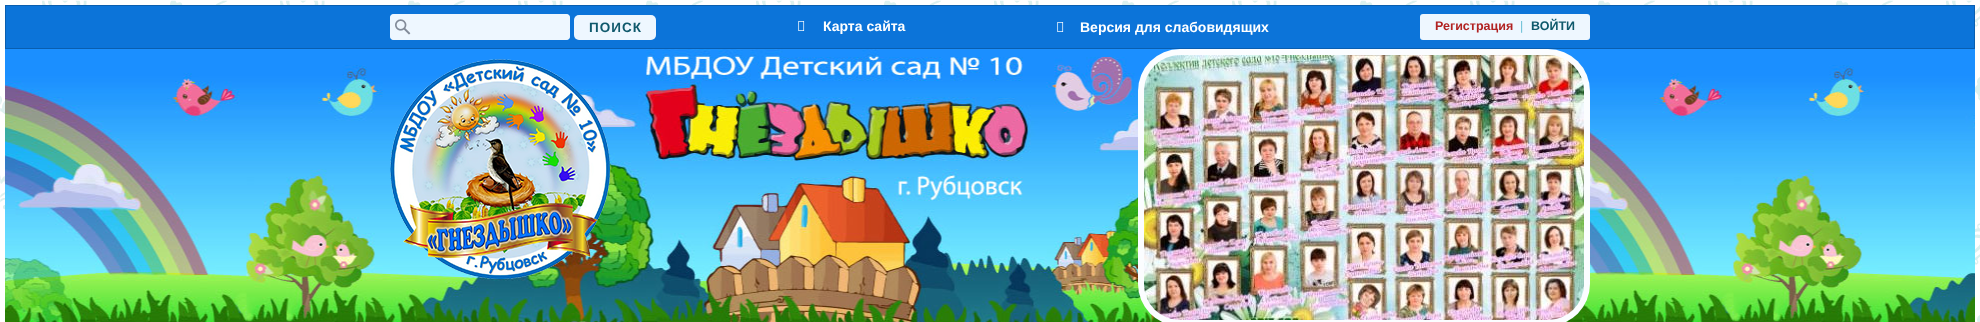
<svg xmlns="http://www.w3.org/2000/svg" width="1980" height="322">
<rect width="100%" height="100%" fill="#fff"/>
<image x="0" y="0" width="1980" height="322" href="media/1.png"/>
<rect x="5.5" y="5.5" width="1969" height="43" fill="#0c74d9" stroke="#095eb0"/>
<rect x="390" y="14" width="180" height="26" rx="4" fill="#eef7ff"/>
<image x="395" y="19" width="16" height="16" href="media/2.png"/>
<rect x="390.5" y="14.5" width="179" height="25" rx="3.5" fill="none" stroke="#eef7ff"/>
<rect x="574" y="15" width="82" height="25" rx="5" fill="#eef7ff"/>
<text x="589" y="32" style="font-family:Liberation Sans;font-size:13.5px;font-weight:bold;letter-spacing:1px;fill:#0f596c">ПОИСК</text>
<image x="798" y="21" width="7" height="10" href="media/3.png"/>
<text x="823" y="31" style="font-family:Liberation Sans;font-size:14px;font-weight:bold;fill:#fff">Карта сайта</text>
<image x="1057" y="22" width="7" height="10" href="media/3.png"/>
<text x="1080" y="32" style="font-family:Liberation Sans;font-size:14px;font-weight:bold;fill:#fff">Версия для слабовидящих</text>
<rect x="1420" y="14" width="170" height="26" rx="3" fill="#eef7ff"/>
<text x="1435" y="30" style="font-family:Liberation Sans;font-size:12.5px;font-weight:bold;fill:#b12222">Регистрация</text>
<text x="1520" y="30" style="font-family:Liberation Sans;font-size:12.5px;fill:#6abfd6">|</text>
<text x="1531" y="30" style="font-family:Liberation Sans;font-size:12.5px;font-weight:bold;fill:#0f596c">ВОЙТИ</text>
<image x="5" y="49" width="1970" height="273" href="media/4.png"/>
<image x="390" y="59" width="220" height="220" href="media/5.png"/>
<rect x="1138" y="49" width="452" height="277" rx="42" fill="#fbfdff"/>
<image x="1144" y="55" width="440" height="265" href="media/6.png"/>
</svg>
